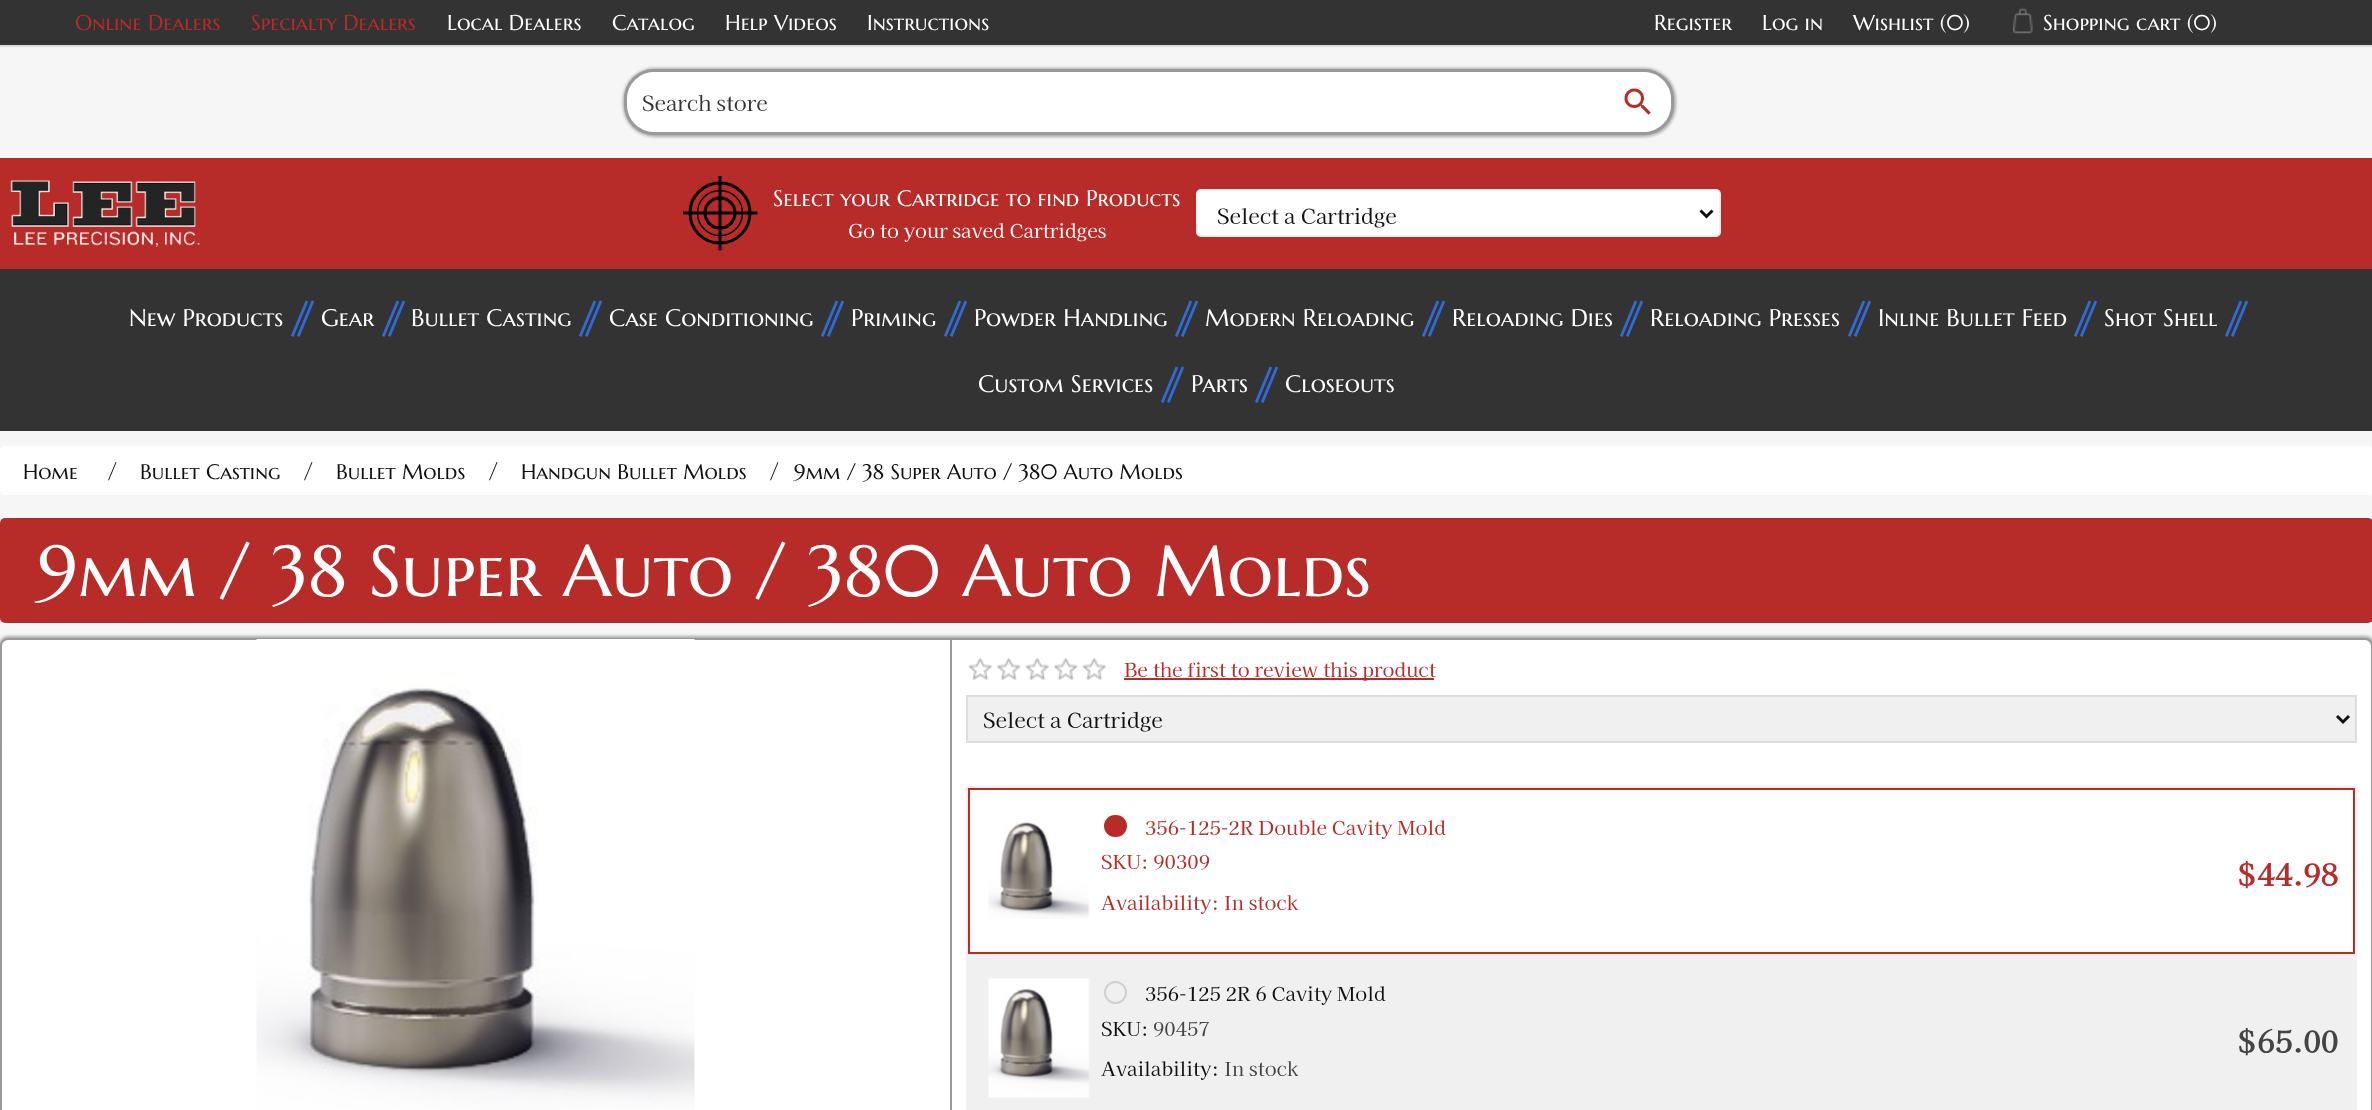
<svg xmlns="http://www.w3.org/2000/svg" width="2372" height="1110">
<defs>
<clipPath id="clip1"><rect x="683" y="176" width="75" height="75"/></clipPath>
</defs>
<rect width="100%" height="100%" fill="#f6f6f6"/>
<rect y="158" width="2372" height="111" fill="#b72b29"/>
<rect width="2372" height="45" fill="#333"/>
<rect y="45" width="2372" height="2" fill="#ddd"/>
<text x="75" y="30" style="font-family:Marcellus SC;font-size:21.5px;fill:#b72b29">Online Dealers</text>
<text x="251" y="30" style="font-family:Marcellus SC;font-size:21.5px;fill:#b72b29">Specialty Dealers</text>
<text x="447" y="30" style="font-family:Marcellus SC;font-size:21.5px;fill:#fff">Local Dealers</text>
<text x="612" y="30" style="font-family:Marcellus SC;font-size:21.5px;fill:#fff">Catalog</text>
<text x="725" y="30" style="font-family:Marcellus SC;font-size:21.5px;fill:#fff">Help Videos</text>
<text x="867" y="30" style="font-family:Marcellus SC;font-size:21.5px;fill:#fff">Instructions</text>
<text x="1654" y="30" style="font-family:Marcellus SC;font-size:21.5px;fill:#fff">Register</text>
<text x="1762" y="30" style="font-family:Marcellus SC;font-size:21.5px;fill:#fff">Log in</text>
<text x="1853" y="30" style="font-family:Marcellus SC;font-size:21.5px;fill:#fff">Wishlist (0)</text>
<image x="2013" y="7" width="20" height="27" href="media/1.png"/>
<text x="2043" y="30" style="font-family:Marcellus SC;font-size:21.5px;fill:#fff">Shopping cart (0)</text>
<rect x="623" y="68" width="1053" height="69" rx="32" fill="#0000004d" filter="blur(1.5px)"/>
<rect x="625.5" y="70.5" width="1047" height="63" rx="28.5" fill="#fff" stroke="#999" stroke-width="3"/>
<path d="M657 72h948v60h-948c-16.5 0-30-13.5-30-30c0-16.5 13.5-30 30-30z" fill="#fff"/>
<text x="642" y="111" style="font-family:Kaisei Decol;font-size:21px;fill:#333">Search store</text>
<path d="M1604 72h37c16.5 0 30 13.5 30 30c0 16.5-13.5 30-30 30h-37z" fill="#fff"/>
<image x="1624" y="88" width="27" height="27" href="media/2.png"/>
<image x="10" y="180" width="190" height="67" href="media/3.png"/>
<circle cx="720" cy="213" r="30" fill="none" stroke="#000" stroke-width="3"/>
<circle cx="720" cy="213" r="22.5" fill="none" stroke="#000" stroke-width="1.5"/>
<circle cx="720" cy="213" r="15" fill="none" stroke="#000" stroke-width="3"/>
<g clip-path="url(#clip1)">
<path d="M720 175.5v75" fill="none" stroke="#000" stroke-width="3"/>
<path d="M682.5 213h75" fill="none" stroke="#000" stroke-width="3"/>
</g>
<text x="773" y="206" style="font-family:Marcellus SC;font-size:22.5px;fill:#fff">Select your Cartridge to find Products</text>
<text x="848" y="238" style="font-family:Kaisei Decol;font-size:19.25px;fill:#fff">Go to your saved Cartridges</text>
<rect x="1197" y="190" width="523" height="46" rx="4" fill="#fff" stroke="#f0f0f0" stroke-width="2"/>
<path d="M1700.5 210.5l6 6l6-6" fill="none" stroke="#111" stroke-width="3"/>
<text x="1217" y="224" style="font-family:Kaisei Decol;font-size:21px;fill:#111">Select a Cartridge</text>
<rect y="269" width="2372" height="162" fill="#333"/>
<text x="129" y="326" style="font-family:Marcellus SC;font-size:24px;fill:#fff">New Products</text>
<text x="289" y="334" style="font-family:Kaisei Decol;font-size:40px;font-weight:bold;letter-spacing:-14px;fill:#336bd5">//</text>
<text x="321" y="326" style="font-family:Marcellus SC;font-size:24px;fill:#fff">Gear</text>
<text x="380" y="334" style="font-family:Kaisei Decol;font-size:40px;font-weight:bold;letter-spacing:-14px;fill:#336bd5">//</text>
<text x="411" y="326" style="font-family:Marcellus SC;font-size:24px;fill:#fff">Bullet Casting</text>
<text x="577" y="334" style="font-family:Kaisei Decol;font-size:40px;font-weight:bold;letter-spacing:-14px;fill:#336bd5">//</text>
<text x="609" y="326" style="font-family:Marcellus SC;font-size:24px;fill:#fff">Case Conditioning</text>
<text x="819" y="334" style="font-family:Kaisei Decol;font-size:40px;font-weight:bold;letter-spacing:-14px;fill:#336bd5">//</text>
<text x="851" y="326" style="font-family:Marcellus SC;font-size:24px;fill:#fff">Priming</text>
<text x="942" y="334" style="font-family:Kaisei Decol;font-size:40px;font-weight:bold;letter-spacing:-14px;fill:#336bd5">//</text>
<text x="974" y="326" style="font-family:Marcellus SC;font-size:24px;fill:#fff">Powder Handling</text>
<text x="1173" y="334" style="font-family:Kaisei Decol;font-size:40px;font-weight:bold;letter-spacing:-14px;fill:#336bd5">//</text>
<text x="1205" y="326" style="font-family:Marcellus SC;font-size:24px;fill:#fff">Modern Reloading</text>
<text x="1420" y="334" style="font-family:Kaisei Decol;font-size:40px;font-weight:bold;letter-spacing:-14px;fill:#336bd5">//</text>
<text x="1452" y="326" style="font-family:Marcellus SC;font-size:24px;fill:#fff">Reloading Dies</text>
<text x="1618" y="334" style="font-family:Kaisei Decol;font-size:40px;font-weight:bold;letter-spacing:-14px;fill:#336bd5">//</text>
<text x="1650" y="326" style="font-family:Marcellus SC;font-size:24px;fill:#fff">Reloading Presses</text>
<text x="1846" y="334" style="font-family:Kaisei Decol;font-size:40px;font-weight:bold;letter-spacing:-14px;fill:#336bd5">//</text>
<text x="1878" y="326" style="font-family:Marcellus SC;font-size:24px;fill:#fff">Inline Bullet Feed</text>
<text x="2072" y="334" style="font-family:Kaisei Decol;font-size:40px;font-weight:bold;letter-spacing:-14px;fill:#336bd5">//</text>
<text x="2104" y="326" style="font-family:Marcellus SC;font-size:24px;fill:#fff">Shot Shell</text>
<text x="2223" y="334" style="font-family:Kaisei Decol;font-size:40px;font-weight:bold;letter-spacing:-14px;fill:#336bd5">//</text>
<text x="978" y="392" style="font-family:Marcellus SC;font-size:24px;fill:#fff">Custom Services</text>
<text x="1159" y="400" style="font-family:Kaisei Decol;font-size:40px;font-weight:bold;letter-spacing:-14px;fill:#336bd5">//</text>
<text x="1191" y="392" style="font-family:Marcellus SC;font-size:24px;fill:#fff">Parts</text>
<text x="1253" y="400" style="font-family:Kaisei Decol;font-size:40px;font-weight:bold;letter-spacing:-14px;fill:#336bd5">//</text>
<text x="1285" y="392" style="font-family:Marcellus SC;font-size:24px;fill:#fff">Closeouts</text>
<rect y="446" width="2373" height="49" rx="5" fill="#fff"/>
<text x="23" y="479" style="font-family:Marcellus SC;font-size:21px;fill:#111">Home</text>
<text x="107" y="479" style="font-family:Kaisei Decol;font-size:21px;fill:#111">/</text>
<text x="140" y="479" style="font-family:Marcellus SC;font-size:21px;fill:#111">Bullet Casting</text>
<text x="303" y="479" style="font-family:Kaisei Decol;font-size:21px;fill:#111">/</text>
<text x="336" y="479" style="font-family:Marcellus SC;font-size:21px;fill:#111">Bullet Molds</text>
<text x="488" y="479" style="font-family:Kaisei Decol;font-size:21px;fill:#111">/</text>
<text x="521" y="479" style="font-family:Marcellus SC;font-size:21px;fill:#111">Handgun Bullet Molds</text>
<text x="769" y="479" style="font-family:Kaisei Decol;font-size:21px;fill:#111">/</text>
<text x="794" y="479" style="font-family:Marcellus SC;font-size:21px;fill:#111">9mm / 38 Super Auto / 380 Auto Molds</text>
<rect y="518" width="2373" height="105" rx="5" fill="#b72b29"/>
<text x="38" y="596" style="font-family:Marcellus SC;font-size:72px;fill:#fff">9mm / 38 Super Auto / 380 Auto Molds</text>
<rect x="-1" y="636" width="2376" height="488" rx="9" fill="#0000004d" filter="blur(1.5px)"/>
<rect x="1" y="639" width="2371" height="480" rx="7" fill="#fff" stroke="#999" stroke-width="2"/>
<image x="256" y="639" width="439" height="471" href="media/4.png"/>
<rect x="950" y="639" width="2" height="471" fill="#999"/>
<image x="968" y="658" width="138" height="22" href="media/5.png"/>
<rect x="1124" y="678" width="310" height="2" fill="#b72b29"/>
<text x="1124" y="677" style="font-family:Kaisei Decol;font-size:19.25px;fill:#b72b29">Be the first to review this product</text>
<rect x="967" y="696" width="1389" height="46" fill="#f0f0f0" stroke="#ddd" stroke-width="2"/>
<path d="M2337 716l6 6l6-6" fill="none" stroke="#111" stroke-width="3"/>
<text x="983" y="728" style="font-family:Kaisei Decol;font-size:21px;fill:#111">Select a Cartridge</text>
<rect x="967" y="787" width="1389" height="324" fill="none" stroke="#f0f0f0" stroke-width="2"/>
<rect x="969" y="789" width="1385" height="164" fill="none" stroke="#b72b29" stroke-width="2"/>
<image x="988" y="822" width="102" height="97" href="media/6.png"/>
<rect x="1105" y="816" width="21" height="20" rx="10" fill="#b72b29" stroke="#b72b29" stroke-width="2"/>
<text x="1145" y="835" style="font-family:Kaisei Decol;font-size:19.25px;fill:#b72b29">356-125-2R Double Cavity Mold</text>
<text x="1101" y="869" style="font-family:Kaisei Decol;font-size:19.25px;fill:#b72b29">SKU: 90309</text>
<text x="1101" y="910" style="font-family:Kaisei Decol;font-size:19.25px;fill:#b72b29">Availability: In stock</text>
<text x="2236" y="886" style="font-family:Kaisei Decol;font-size:30px;font-weight:bold;fill:#b72b29">$44.98</text>
<rect x="968" y="954" width="1387" height="156" fill="#f0f0f0"/>
<image x="988" y="978" width="102" height="120" href="media/7.png"/>
<circle cx="1115.5" cy="992.5" r="10.5" fill="none" stroke="#d0d0d0" stroke-width="2"/>
<text x="1145" y="1001" style="font-family:Kaisei Decol;font-size:19.25px;fill:#111">356-125 2R 6 Cavity Mold</text>
<text x="1101" y="1036" style="font-family:Kaisei Decol;font-size:19.25px;fill:#111">SKU:</text>
<text x="1153" y="1036" style="font-family:Kaisei Decol;font-size:19.25px;fill:#444">90457</text>
<text x="1101" y="1076" style="font-family:Kaisei Decol;font-size:19.25px;fill:#111">Availability:</text>
<text x="1224" y="1076" style="font-family:Kaisei Decol;font-size:19.25px;fill:#444">In stock</text>
<text x="2236" y="1053" style="font-family:Kaisei Decol;font-size:30px;font-weight:bold;fill:#444">$65.00</text>
</svg>
